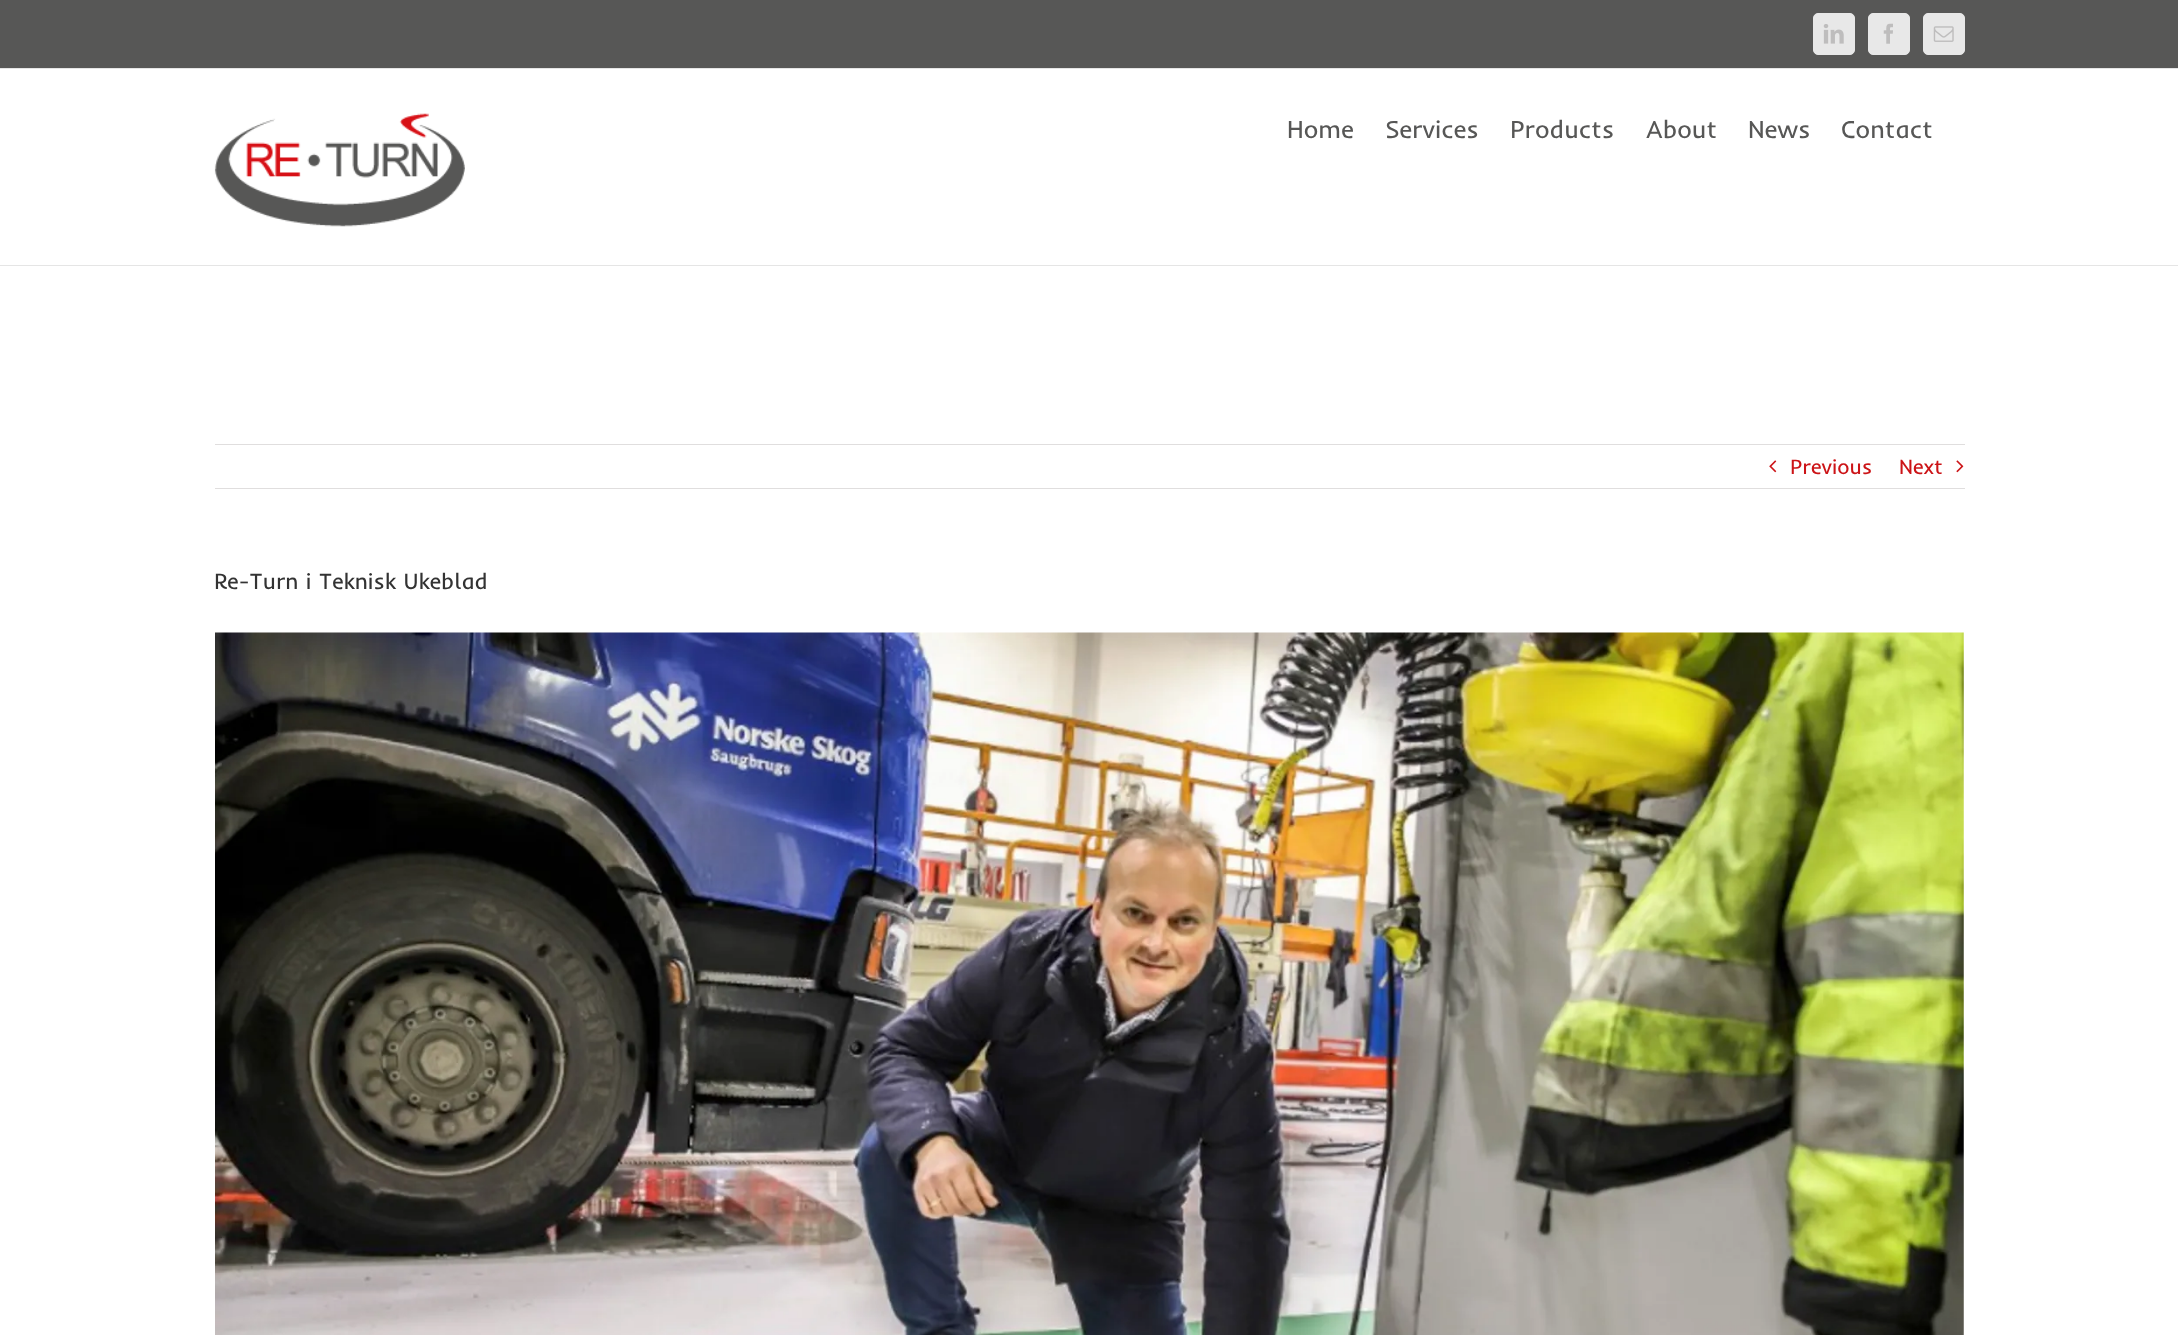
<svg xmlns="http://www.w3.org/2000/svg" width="2178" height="1335">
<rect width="100%" height="100%" fill="#fff"/>
<rect width="2178" height="68" fill="#575756"/>
<rect y="68" width="2178" height="1" fill="#e5e5e5"/>
<rect x="1813.5" y="13.5" width="41" height="41" rx="4.5" fill="#e8e8e8" stroke="#e8e8e8"/>
<image x="1823" y="24" width="21" height="20" href="media/1.png"/>
<rect x="1868.5" y="13.5" width="41" height="41" rx="4.5" fill="#e8e8e8" stroke="#e8e8e8"/>
<image x="1883" y="23" width="10" height="21" href="media/2.png"/>
<rect x="1923.5" y="13.5" width="41" height="41" rx="4.5" fill="#e8e8e8" stroke="#e8e8e8"/>
<image x="1933" y="26" width="21" height="16" href="media/3.png"/>
<rect y="265" width="2178" height="1" fill="#e5e5e5"/>
<image x="214" y="113" width="251" height="114" href="media/4.png"/>
<text x="1287" y="138" style="font-family:Inder;font-size:25px;fill:#575756">Home</text>
<text x="1385" y="138" style="font-family:Inder;font-size:25px;fill:#575756">Services</text>
<text x="1510" y="138" style="font-family:Inder;font-size:25px;fill:#575756">Products</text>
<text x="1646" y="138" style="font-family:Inder;font-size:25px;fill:#575756">About</text>
<text x="1748" y="138" style="font-family:Inder;font-size:25px;fill:#575756">News</text>
<text x="1841" y="138" style="font-family:Inder;font-size:25px;fill:#575756">Contact</text>
<rect x="215" y="444" width="1750" height="1" fill="#e0dede"/>
<rect x="215" y="488" width="1750" height="1" fill="#e0dede"/>
<image x="1769" y="460" width="8" height="13" href="media/5.png"/>
<text x="1790" y="474" style="font-family:Inder;font-size:21px;fill:#cc1417">Previous</text>
<text x="1899" y="474" style="font-family:Inder;font-size:21px;fill:#cc1417">Next</text>
<image x="1956" y="460" width="8" height="13" href="media/6.png"/>
<text x="214" y="589" style="font-family:Inder;font-size:22.5px;fill:#333">Re-Turn i Teknisk Ukeblad</text>
<image x="215" y="632" width="1749" height="703" href="media/7.png"/>
</svg>
